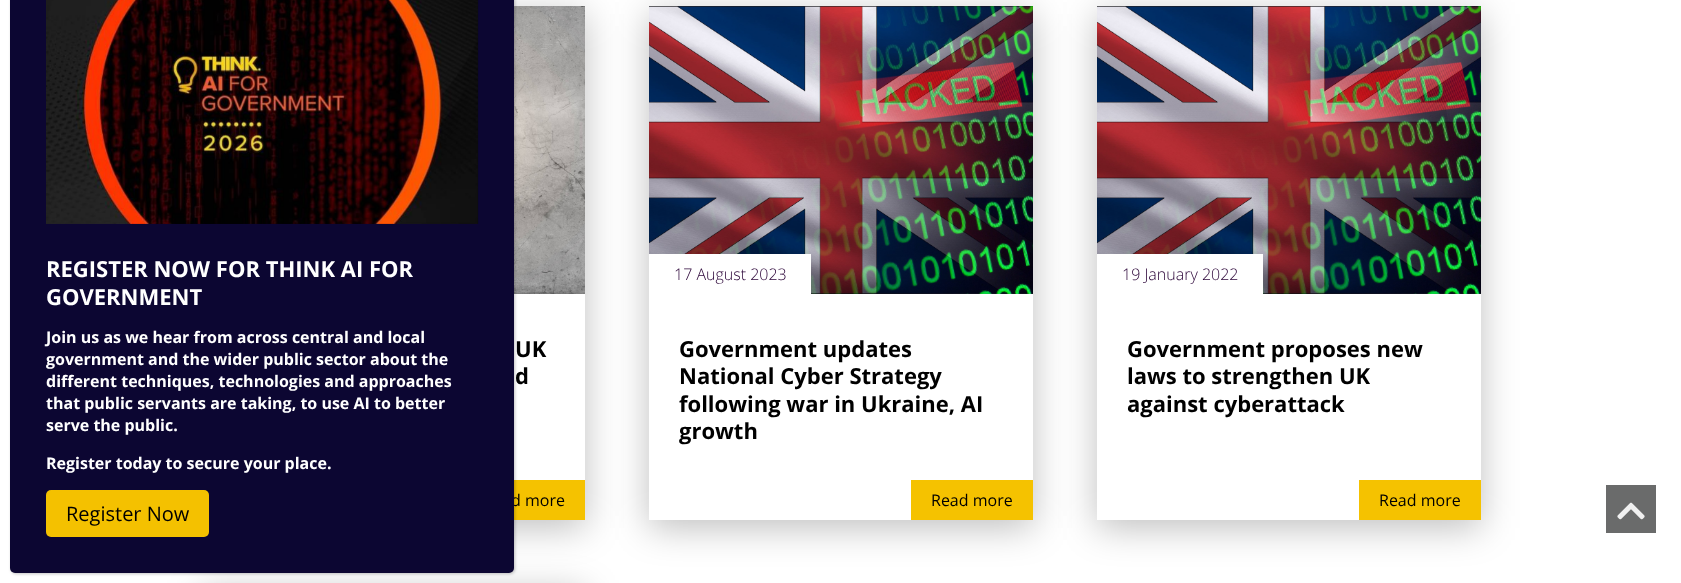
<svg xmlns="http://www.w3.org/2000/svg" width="1681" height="583">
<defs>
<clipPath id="clip1"><path d="M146 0h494v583h-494zm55 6h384v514h-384z" clip-rule="evenodd"/></clipPath>
<clipPath id="clip2"><path d="M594 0h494v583h-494zm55 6h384v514h-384z" clip-rule="evenodd"/></clipPath>
<clipPath id="clip3"><path d="M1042 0h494v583h-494zm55 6h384v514h-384z" clip-rule="evenodd"/></clipPath>
</defs>
<rect width="100%" height="100%" fill="#fff"/>
<g clip-path="url(#clip1)">
<rect x="201" y="14" width="384" height="514" fill="#00000040" filter="blur(18px)"/>
</g>
<image x="514" y="6" width="71" height="288" href="media/2.png"/>
<rect x="514" y="480" width="71" height="40" fill="#f5c200"/>
<rect x="11" y="-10" width="504" height="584" rx="5" fill="#0202023b" filter="blur(1.5px)"/>
<text x="511" y="506" style="font-family:Open Sans;font-size:16px;fill:#000">d more</text>
<rect x="201" y="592" width="384" height="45" fill="#00000040" filter="blur(18px)"/>
<rect x="10" y="-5" width="504" height="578" rx="5" fill="#0c0632"/>
<image x="46" y="0" width="433" height="224" href="media/1.png"/>
<text x="46" y="277" style="font-family:Open Sans;font-size:22px;font-weight:bold;fill:#fff">REGISTER NOW FOR THINK AI FOR</text>
<text x="46" y="305" style="font-family:Open Sans;font-size:22px;font-weight:bold;fill:#fff">GOVERNMENT</text>
<text x="46" y="343" style="font-family:Open Sans;font-size:16px;font-weight:bold;fill:#fff">Join us as we hear from across central and local</text>
<text x="46" y="365" style="font-family:Open Sans;font-size:16px;font-weight:bold;fill:#fff">government and the wider public sector about the</text>
<text x="46" y="387" style="font-family:Open Sans;font-size:16px;font-weight:bold;fill:#fff">different techniques, technologies and approaches</text>
<text x="46" y="409" style="font-family:Open Sans;font-size:16px;font-weight:bold;fill:#fff">that public servants are taking, to use AI to better</text>
<text x="46" y="431" style="font-family:Open Sans;font-size:16px;font-weight:bold;fill:#fff">serve the public.</text>
<text x="46" y="469" style="font-family:Open Sans;font-size:16px;font-weight:bold;fill:#fff">Register today to secure your place.</text>
<rect x="46" y="490" width="163" height="47" rx="5" fill="#f4c100"/>
<text x="66" y="521" style="font-family:Open Sans;font-size:20px;fill:#000">Register Now</text>
<text x="515" y="357" style="font-family:Open Sans;font-size:22px;font-weight:bold;fill:#000">UK</text>
<text x="515" y="384" style="font-family:Open Sans;font-size:22px;font-weight:bold;fill:#000">d</text>
<g clip-path="url(#clip2)">
<rect x="649" y="14" width="384" height="514" fill="#00000040" filter="blur(18px)"/>
</g>
<image x="649" y="6" width="384" height="288" href="media/3.png"/>
<rect x="649" y="254" width="162" height="40" fill="#fff"/>
<text x="674" y="280" style="font-family:Open Sans;font-size:16px;font-weight:300;fill:#2b0438">17 August 2023</text>
<text x="679" y="357" style="font-family:Open Sans;font-size:22px;font-weight:bold;fill:#000">Government updates</text>
<text x="679" y="384" style="font-family:Open Sans;font-size:22px;font-weight:bold;fill:#000">National Cyber Strategy</text>
<text x="679" y="412" style="font-family:Open Sans;font-size:22px;font-weight:bold;fill:#000">following war in Ukraine, AI</text>
<text x="679" y="439" style="font-family:Open Sans;font-size:22px;font-weight:bold;fill:#000">growth</text>
<rect x="911" y="480" width="122" height="40" fill="#f5c200"/>
<text x="931" y="506" style="font-family:Open Sans;font-size:16px;fill:#000">Read more</text>
<g clip-path="url(#clip3)">
<rect x="1097" y="14" width="384" height="514" fill="#00000040" filter="blur(18px)"/>
</g>
<image x="1097" y="6" width="384" height="288" href="media/3.png"/>
<rect x="1097" y="254" width="166" height="40" fill="#fff"/>
<text x="1122" y="280" style="font-family:Open Sans;font-size:16px;font-weight:300;fill:#2b0438">19 January 2022</text>
<text x="1127" y="357" style="font-family:Open Sans;font-size:22px;font-weight:bold;fill:#000">Government proposes new</text>
<text x="1127" y="384" style="font-family:Open Sans;font-size:22px;font-weight:bold;fill:#000">laws to strengthen UK</text>
<text x="1127" y="412" style="font-family:Open Sans;font-size:22px;font-weight:bold;fill:#000">against cyberattack</text>
<rect x="1359" y="480" width="122" height="40" fill="#f5c200"/>
<text x="1379" y="506" style="font-family:Open Sans;font-size:16px;fill:#000">Read more</text>
<rect x="1606" y="485" width="50" height="48" fill="#6a6b6b"/>
<image x="1617" y="502" width="28" height="18" href="media/4.png"/>
</svg>
